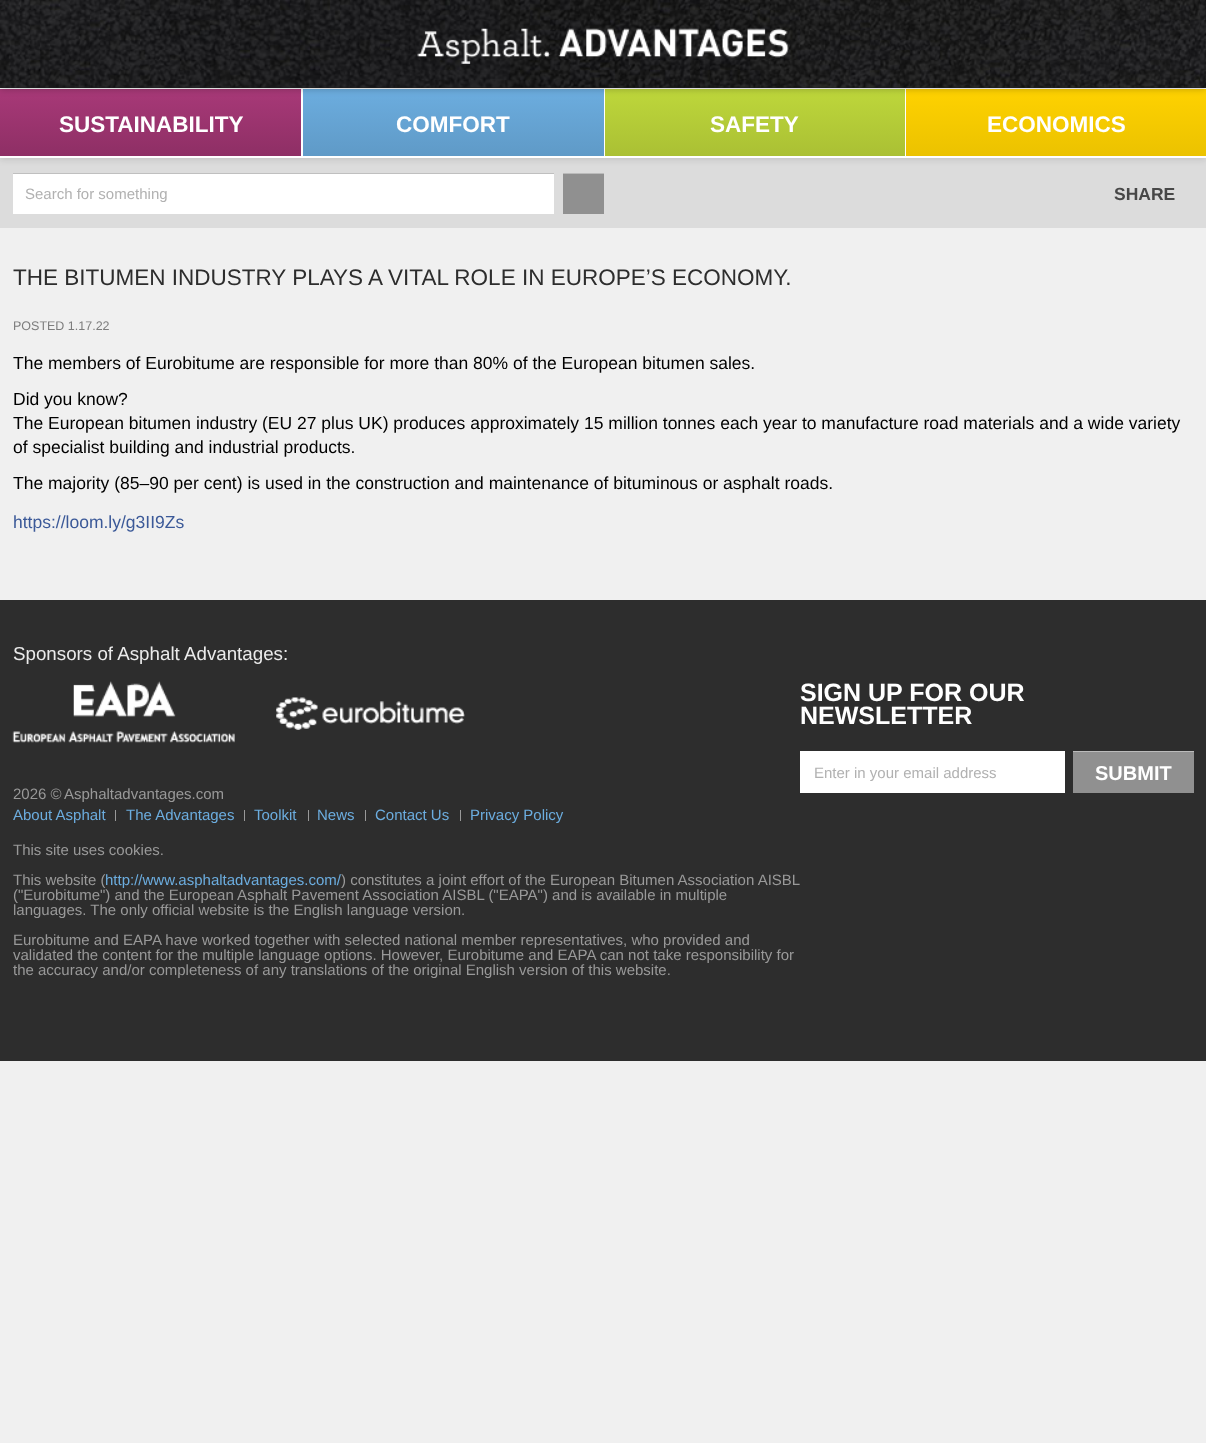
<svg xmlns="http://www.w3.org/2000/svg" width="1206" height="1443">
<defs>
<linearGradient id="g1" gradientUnits="userSpaceOnUse" x1="151" y1="89" x2="151" y2="156"><stop offset="0" stop-color="#a83978"/><stop offset="1" stop-color="#8e2f65"/></linearGradient>
<linearGradient id="g2" gradientUnits="userSpaceOnUse" x1="453" y1="89" x2="453" y2="156"><stop offset="0" stop-color="#6caddf"/><stop offset="1" stop-color="#5f9ac7"/></linearGradient>
<linearGradient id="g3" gradientUnits="userSpaceOnUse" x1="755" y1="89" x2="755" y2="156"><stop offset="0" stop-color="#bed73b"/><stop offset="1" stop-color="#aac034"/></linearGradient>
<linearGradient id="g4" gradientUnits="userSpaceOnUse" x1="1056" y1="89" x2="1056" y2="156"><stop offset="0" stop-color="#ffd200"/><stop offset="1" stop-color="#ebc200"/></linearGradient>
</defs>
<rect width="100%" height="100%" fill="#f0f0f0"/>
<rect y="158" width="1206" height="70" fill="#dcdcdc"/>
<rect y="90" width="1206" height="70" fill="#0000001a" filter="blur(3px)"/>
<rect y="88" width="1206" height="70" fill="#fff"/>
<rect y="89" width="301" height="67" fill="url(#g1)"/>
<rect x="303" y="89" width="301" height="67" fill="url(#g2)"/>
<rect x="605" y="89" width="300" height="67" fill="url(#g3)"/>
<rect x="906" y="89" width="300" height="67" fill="url(#g4)"/>
<rect y="3" width="1206" height="87" fill="#00000033" filter="blur(3px)"/>
<rect y="87" width="1206" height="1" fill="#202021"/>
<image x="0" y="0" width="1206" height="88" href="media/1.png"/>
<image x="417" y="28" width="372" height="36" href="media/2.png"/>
<text x="59" y="132" style="font-family:Liberation Sans;font-size:22.5px;font-weight:bold;fill:#fff">SUSTAINABILITY</text>
<text x="396" y="132" style="font-family:Liberation Sans;font-size:22.5px;font-weight:bold;fill:#fff">COMFORT</text>
<text x="710" y="132" style="font-family:Liberation Sans;font-size:22.5px;font-weight:bold;fill:#fff">SAFETY</text>
<text x="987" y="132" style="font-family:Liberation Sans;font-size:22.5px;font-weight:bold;fill:#fff">ECONOMICS</text>
<rect x="13" y="174" width="541" height="40" fill="#fff"/>
<rect x="13" y="173" width="541" height="1" fill="#bfbfbf"/>
<text x="25" y="199" style="font-family:Liberation Sans;font-size:15px;fill:#b1b1b1">Search for something</text>
<rect x="563" y="174" width="41" height="40" fill="#909090"/>
<rect x="563" y="173" width="41" height="1" fill="#bbb"/>
<text x="1114" y="200" style="font-family:Liberation Sans;font-size:17.5px;font-weight:bold;fill:#484848">SHARE</text>
<text x="13" y="285" style="font-family:Liberation Sans;font-size:22.5px;fill:#2d2d2d">THE BITUMEN INDUSTRY PLAYS A VITAL ROLE IN EUROPE’S ECONOMY.</text>
<text x="13" y="330" style="font-family:Liberation Sans;font-size:12.5px;fill:#7d7d7d">POSTED 1.17.22</text>
<text x="13" y="369" style="font-family:Liberation Sans;font-size:17.5px;fill:#000">The members of Eurobitume are responsible for more than 80% of the European bitumen sales.</text>
<text x="13" y="405" style="font-family:Liberation Sans;font-size:17.5px;fill:#000">Did you know?</text>
<text x="13" y="429" style="font-family:Liberation Sans;font-size:17.5px;fill:#000">The European bitumen industry (EU 27 plus UK) produces approximately 15 million tonnes each year to manufacture road materials and a wide variety</text>
<text x="13" y="453" style="font-family:Liberation Sans;font-size:17.5px;fill:#000">of specialist building and industrial products.</text>
<text x="13" y="489" style="font-family:Liberation Sans;font-size:17.5px;fill:#000">The majority (85–90 per cent) is used in the construction and maintenance of bituminous or asphalt roads.</text>
<text x="13" y="528" style="font-family:Liberation Sans;font-size:17.5px;fill:#3b5998">https://loom.ly/g3II9Zs</text>
<rect y="600" width="1206" height="461" fill="#2d2d2d"/>
<text x="13" y="660" style="font-family:Liberation Sans;font-size:18.75px;fill:#ebebeb">Sponsors of Asphalt Advantages:</text>
<image x="12" y="681" width="223" height="62" href="media/3.png"/>
<image x="276" y="697" width="189" height="33" href="media/4.png"/>
<text x="13" y="799" style="font-family:Liberation Sans;font-size:15px;fill:#999">2026 ©</text>
<text x="64" y="799" style="font-family:Liberation Sans;font-size:15px;fill:#999">Asphaltadvantages.com</text>
<text x="13" y="820" style="font-family:Liberation Sans;font-size:15px;fill:#6caddf">About Asphalt</text>
<rect x="115" y="810" width="1" height="11" fill="#999"/>
<text x="126" y="820" style="font-family:Liberation Sans;font-size:15px;fill:#6caddf">The Advantages</text>
<rect x="244" y="810" width="1" height="11" fill="#999"/>
<text x="254" y="820" style="font-family:Liberation Sans;font-size:15px;fill:#6caddf">Toolkit</text>
<rect x="308" y="810" width="1" height="11" fill="#999"/>
<text x="317" y="820" style="font-family:Liberation Sans;font-size:15px;fill:#6caddf">News</text>
<rect x="365" y="810" width="1" height="11" fill="#999"/>
<text x="375" y="820" style="font-family:Liberation Sans;font-size:15px;fill:#6caddf">Contact Us</text>
<rect x="460" y="810" width="1" height="11" fill="#999"/>
<text x="470" y="820" style="font-family:Liberation Sans;font-size:15px;fill:#6caddf">Privacy Policy</text>
<text x="13" y="855" style="font-family:Liberation Sans;font-size:15px;fill:#999">This site uses cookies.</text>
<text x="13" y="885" style="font-family:Liberation Sans;font-size:15px;fill:#999">This website (</text>
<text x="105" y="885" style="font-family:Liberation Sans;font-size:15px;fill:#6caddf">http://www.asphaltadvantages.com/</text>
<text x="341" y="885" style="font-family:Liberation Sans;font-size:15px;fill:#999">) constitutes a joint effort of the European Bitumen Association AISBL</text>
<text x="13" y="900" style="font-family:Liberation Sans;font-size:15px;fill:#999">("Eurobitume") and the European Asphalt Pavement Association AISBL ("EAPA") and is available in multiple</text>
<text x="13" y="915" style="font-family:Liberation Sans;font-size:15px;fill:#999">languages. The only official website is the English language version.</text>
<text x="13" y="945" style="font-family:Liberation Sans;font-size:15px;fill:#999">Eurobitume and EAPA have worked together with selected national member representatives, who provided and</text>
<text x="13" y="960" style="font-family:Liberation Sans;font-size:15px;fill:#999">validated the content for the multiple language options. However, Eurobitume and EAPA can not take responsibility for</text>
<text x="13" y="975" style="font-family:Liberation Sans;font-size:15px;fill:#999">the accuracy and/or completeness of any translations of the original English version of this website.</text>
<text x="800" y="701" style="font-family:Liberation Sans;font-size:25px;font-weight:bold;fill:#fff">SIGN UP FOR OUR</text>
<text x="800" y="724" style="font-family:Liberation Sans;font-size:25px;font-weight:bold;fill:#fff">NEWSLETTER</text>
<rect x="800" y="751" width="265" height="42" fill="#fff"/>
<text x="814" y="778" style="font-family:Liberation Sans;font-size:15px;fill:#b1b1b1">Enter in your email address</text>
<rect x="1073" y="752" width="121" height="41" fill="#909090"/>
<rect x="1073" y="751" width="121" height="1" fill="#bbb"/>
<text x="1095" y="780" style="font-family:Liberation Sans;font-size:20px;font-weight:bold;fill:#fff">SUBMIT</text>
</svg>
